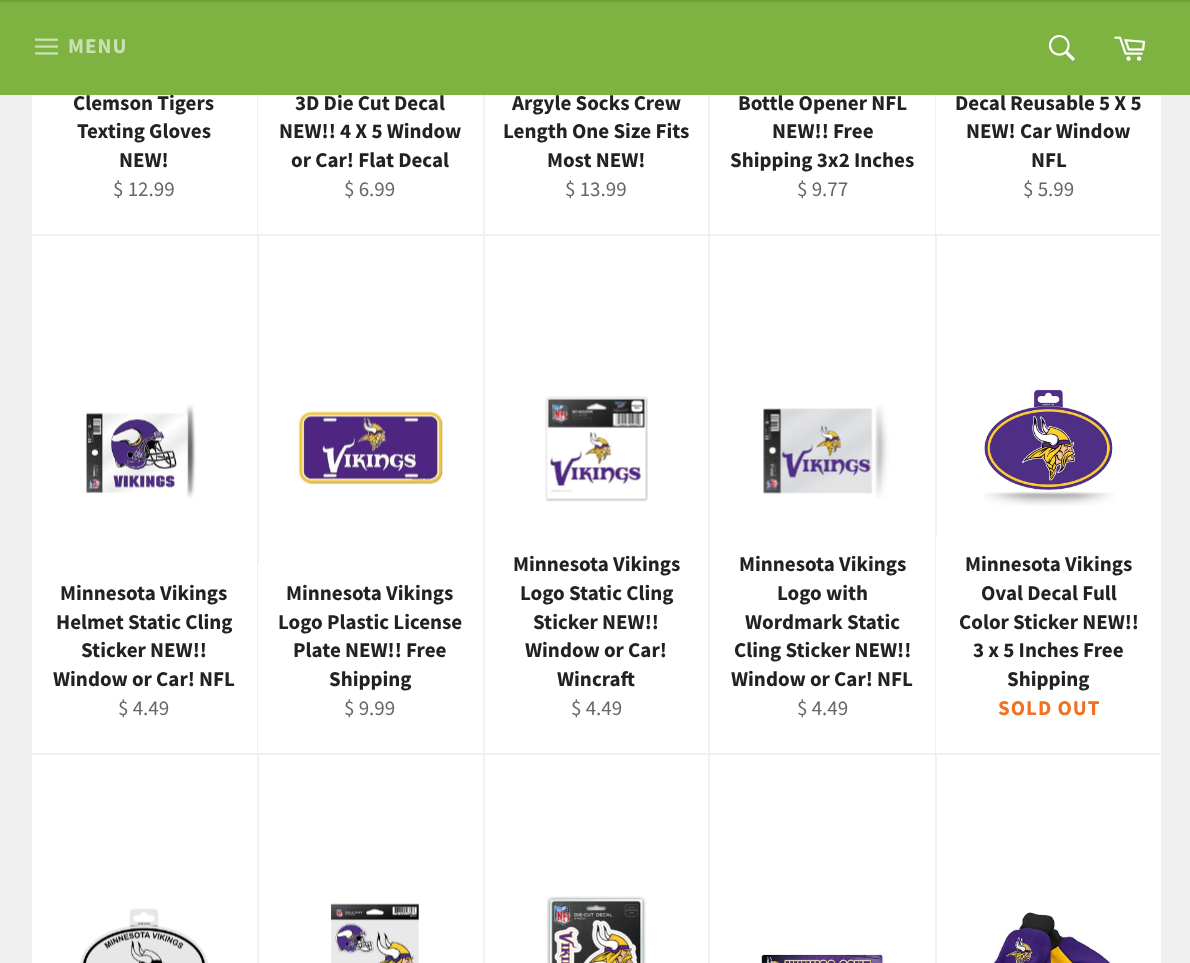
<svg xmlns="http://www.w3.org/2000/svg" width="1190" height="963">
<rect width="100%" height="100%" fill="#f0f0f0"/>
<rect x="32" y="95" width="225" height="139" fill="#fff"/>
<text x="73" y="110" style="font-family:Source Sans Pro;font-size:21px;font-weight:bold;fill:#222">Clemson Tigers</text>
<rect x="258" y="95" width="225" height="139" fill="#fff"/>
<text x="295" y="110" style="font-family:Source Sans Pro;font-size:21px;font-weight:bold;fill:#222">3D Die Cut Decal</text>
<rect y="2" width="1190" height="93" fill="#7eb241"/>
<rect width="1190" height="2" fill="#719f3a"/>
<image x="35" y="38" width="23" height="17" href="media/1.png"/>
<text x="68" y="53" style="font-family:Source Sans Pro;font-size:21px;font-weight:bold;letter-spacing:1px;fill:#cbe0b3">MENU</text>
<image x="1048" y="34" width="27" height="27" href="media/2.png"/>
<image x="1114" y="36" width="31" height="25" href="media/3.png"/>
<text x="77" y="138" style="font-family:Source Sans Pro;font-size:21px;font-weight:bold;fill:#222">Texting Gloves</text>
<text x="119" y="167" style="font-family:Source Sans Pro;font-size:21px;font-weight:bold;fill:#222">NEW!</text>
<text x="113" y="196" style="font-family:Source Sans Pro;font-size:21px;fill:#666">$ 12.99</text>
<text x="279" y="138" style="font-family:Source Sans Pro;font-size:21px;font-weight:bold;fill:#222">NEW!! 4 X 5 Window</text>
<text x="291" y="167" style="font-family:Source Sans Pro;font-size:21px;font-weight:bold;fill:#222">or Car! Flat Decal</text>
<text x="344" y="196" style="font-family:Source Sans Pro;font-size:21px;fill:#666">$ 6.99</text>
<rect x="485" y="95" width="223" height="139" fill="#fff"/>
<text x="512" y="110" style="font-family:Source Sans Pro;font-size:21px;font-weight:bold;fill:#222">Argyle Socks Crew</text>
<text x="503" y="138" style="font-family:Source Sans Pro;font-size:21px;font-weight:bold;fill:#222">Length One Size Fits</text>
<text x="547" y="167" style="font-family:Source Sans Pro;font-size:21px;font-weight:bold;fill:#222">Most NEW!</text>
<text x="565" y="196" style="font-family:Source Sans Pro;font-size:21px;fill:#666">$ 13.99</text>
<rect x="710" y="95" width="225" height="139" fill="#fff"/>
<text x="738" y="110" style="font-family:Source Sans Pro;font-size:21px;font-weight:bold;fill:#222">Bottle Opener NFL</text>
<text x="772" y="138" style="font-family:Source Sans Pro;font-size:21px;font-weight:bold;fill:#222">NEW!! Free</text>
<text x="730" y="167" style="font-family:Source Sans Pro;font-size:21px;font-weight:bold;fill:#222">Shipping 3x2 Inches</text>
<text x="797" y="196" style="font-family:Source Sans Pro;font-size:21px;fill:#666">$ 9.77</text>
<rect x="936" y="95" width="225" height="139" fill="#fff"/>
<text x="955" y="110" style="font-family:Source Sans Pro;font-size:21px;font-weight:bold;fill:#222">Decal Reusable 5 X 5</text>
<text x="966" y="138" style="font-family:Source Sans Pro;font-size:21px;font-weight:bold;fill:#222">NEW! Car Window</text>
<text x="1031" y="167" style="font-family:Source Sans Pro;font-size:21px;font-weight:bold;fill:#222">NFL</text>
<text x="1023" y="196" style="font-family:Source Sans Pro;font-size:21px;fill:#666">$ 5.99</text>
<rect x="32" y="236" width="225" height="517" fill="#fff"/>
<image x="86" y="404" width="110" height="95" href="media/4.png"/>
<text x="60" y="600" style="font-family:Source Sans Pro;font-size:21px;font-weight:bold;fill:#222">Minnesota Vikings</text>
<text x="56" y="629" style="font-family:Source Sans Pro;font-size:21px;font-weight:bold;fill:#222">Helmet Static Cling</text>
<text x="81" y="657" style="font-family:Source Sans Pro;font-size:21px;font-weight:bold;fill:#222">Sticker NEW!!</text>
<text x="53" y="686" style="font-family:Source Sans Pro;font-size:21px;font-weight:bold;fill:#222">Window or Car! NFL</text>
<text x="118" y="715" style="font-family:Source Sans Pro;font-size:21px;fill:#666">$ 4.49</text>
<rect x="259" y="236" width="224" height="328" fill="#fff"/>
<image x="295" y="410" width="149" height="75" href="media/5.png"/>
<rect x="258" y="564" width="225" height="189" fill="#fff"/>
<text x="286" y="600" style="font-family:Source Sans Pro;font-size:21px;font-weight:bold;fill:#222">Minnesota Vikings</text>
<text x="278" y="629" style="font-family:Source Sans Pro;font-size:21px;font-weight:bold;fill:#222">Logo Plastic License</text>
<text x="293" y="657" style="font-family:Source Sans Pro;font-size:21px;font-weight:bold;fill:#222">Plate NEW!! Free</text>
<text x="329" y="686" style="font-family:Source Sans Pro;font-size:21px;font-weight:bold;fill:#222">Shipping</text>
<text x="344" y="715" style="font-family:Source Sans Pro;font-size:21px;fill:#666">$ 9.99</text>
<rect x="485" y="236" width="223" height="517" fill="#fff"/>
<image x="545" y="396" width="103" height="106" href="media/6.png"/>
<text x="513" y="571" style="font-family:Source Sans Pro;font-size:21px;font-weight:bold;fill:#222">Minnesota Vikings</text>
<text x="520" y="600" style="font-family:Source Sans Pro;font-size:21px;font-weight:bold;fill:#222">Logo Static Cling</text>
<text x="533" y="629" style="font-family:Source Sans Pro;font-size:21px;font-weight:bold;fill:#222">Sticker NEW!!</text>
<text x="525" y="657" style="font-family:Source Sans Pro;font-size:21px;font-weight:bold;fill:#222">Window or Car!</text>
<text x="557" y="686" style="font-family:Source Sans Pro;font-size:21px;font-weight:bold;fill:#222">Wincraft</text>
<text x="571" y="715" style="font-family:Source Sans Pro;font-size:21px;fill:#666">$ 4.49</text>
<rect x="710" y="236" width="225" height="517" fill="#fff"/>
<image x="763" y="405" width="126" height="93" href="media/7.png"/>
<text x="739" y="571" style="font-family:Source Sans Pro;font-size:21px;font-weight:bold;fill:#222">Minnesota Vikings</text>
<text x="777" y="600" style="font-family:Source Sans Pro;font-size:21px;font-weight:bold;fill:#222">Logo with</text>
<text x="745" y="629" style="font-family:Source Sans Pro;font-size:21px;font-weight:bold;fill:#222">Wordmark Static</text>
<text x="734" y="657" style="font-family:Source Sans Pro;font-size:21px;font-weight:bold;fill:#222">Cling Sticker NEW!!</text>
<text x="731" y="686" style="font-family:Source Sans Pro;font-size:21px;font-weight:bold;fill:#222">Window or Car! NFL</text>
<text x="797" y="715" style="font-family:Source Sans Pro;font-size:21px;fill:#666">$ 4.49</text>
<rect x="937" y="236" width="224" height="300" fill="#fff"/>
<image x="983" y="389" width="131" height="117" href="media/8.png"/>
<rect x="936" y="536" width="225" height="217" fill="#fff"/>
<text x="965" y="571" style="font-family:Source Sans Pro;font-size:21px;font-weight:bold;fill:#222">Minnesota Vikings</text>
<text x="981" y="600" style="font-family:Source Sans Pro;font-size:21px;font-weight:bold;fill:#222">Oval Decal Full</text>
<text x="959" y="629" style="font-family:Source Sans Pro;font-size:21px;font-weight:bold;fill:#222">Color Sticker NEW!!</text>
<text x="973" y="657" style="font-family:Source Sans Pro;font-size:21px;font-weight:bold;fill:#222">3 x 5 Inches Free</text>
<text x="1007" y="686" style="font-family:Source Sans Pro;font-size:21px;font-weight:bold;fill:#222">Shipping</text>
<text x="998" y="715" style="font-family:Source Sans Pro;font-size:21px;font-weight:bold;letter-spacing:1px;fill:#f36f21">SOLD OUT</text>
<rect x="32" y="755" width="225" height="208" fill="#fff"/>
<image x="80" y="908" width="128" height="55" href="media/9.png"/>
<rect x="259" y="755" width="224" height="208" fill="#fff"/>
<image x="331" y="903" width="88" height="60" href="media/10.png"/>
<rect x="485" y="755" width="223" height="208" fill="#fff"/>
<image x="546" y="896" width="100" height="67" href="media/11.png"/>
<rect x="710" y="755" width="225" height="208" fill="#fff"/>
<image x="760" y="952" width="125" height="11" href="media/12.png"/>
<rect x="937" y="755" width="224" height="208" fill="#fff"/>
<image x="992" y="912" width="120" height="51" href="media/13.png"/>
</svg>
